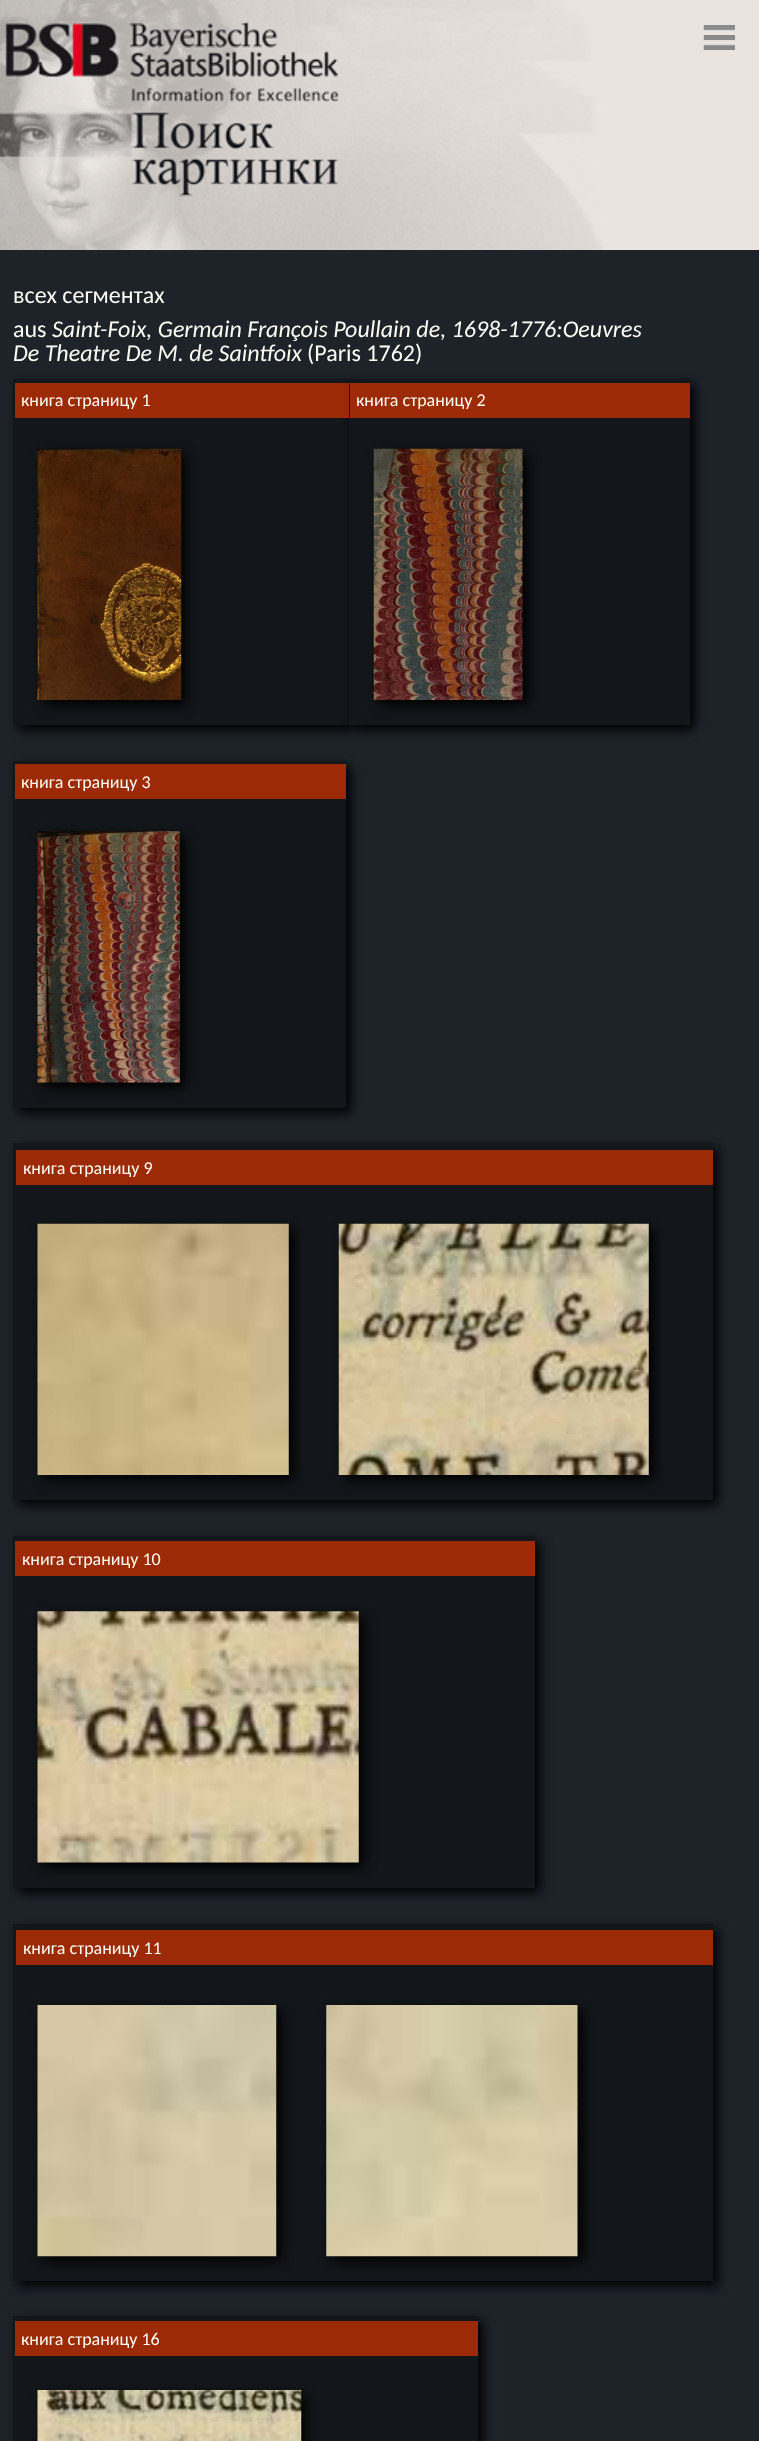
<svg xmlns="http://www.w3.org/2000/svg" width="759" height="2441">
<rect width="100%" height="100%" fill="#1e232a"/>
<rect width="759" height="250" fill="#e9e4e0"/>
<image x="0" y="0" width="604" height="250" href="media/1.png"/>
<image x="703" y="25" width="32" height="25" href="media/2.png"/>
<text x="13" y="303" style="font-family:Carlito;font-size:24px;fill:#fcfcf2">всех сегментах</text>
<text x="13" y="337" style="font-family:Carlito;font-size:24px;fill:#fcfcf2">aus</text>
<text x="52" y="337" style="font-family:Carlito;font-size:24px;font-style:italic;fill:#fcfcf2">Saint-Foix, Germain François Poullain de, 1698-1776:Oeuvres</text>
<text x="13" y="361" style="font-family:Carlito;font-size:24px;font-style:italic;fill:#fcfcf2">De Theatre De M. de Saintfoix</text>
<text x="307" y="361" style="font-family:Carlito;font-size:24px;fill:#fcfcf2">(Paris 1762)</text>
<rect x="18" y="384" width="336" height="346" fill="#000" filter="blur(6px)"/>
<rect x="13" y="379" width="336" height="346" fill="#13161a"/>
<rect x="354" y="384" width="341" height="346" fill="#000" filter="blur(6px)"/>
<rect x="15" y="383" width="334" height="35" fill="#9c2a07"/>
<text x="21" y="406" style="font-family:Carlito;font-size:18px;fill:#fcfcf2">книга страницу 1</text>
<rect x="43" y="454" width="143" height="251" fill="#000" filter="blur(6px)"/>
<image x="37" y="448" width="145" height="252" href="media/3.png"/>
<rect x="349" y="379" width="341" height="346" fill="#13161a"/>
<rect x="350" y="383" width="340" height="35" fill="#9c2a07"/>
<text x="356" y="406" style="font-family:Carlito;font-size:18px;fill:#fcfcf2">книга страницу 2</text>
<rect x="379" y="454" width="149" height="251" fill="#000" filter="blur(6px)"/>
<image x="373" y="448" width="150" height="252" href="media/4.png"/>
<rect x="18" y="766" width="333" height="347" fill="#000" filter="blur(6px)"/>
<rect x="13" y="761" width="333" height="347" fill="#13161a"/>
<rect x="15" y="764" width="331" height="35" fill="#9c2a07"/>
<text x="21" y="788" style="font-family:Carlito;font-size:18px;fill:#fcfcf2">книга страницу 3</text>
<rect x="43" y="836" width="142" height="252" fill="#000" filter="blur(6px)"/>
<image x="37" y="831" width="143" height="252" href="media/5.png"/>
<rect x="18" y="1148" width="700" height="357" fill="#000" filter="blur(6px)"/>
<rect x="13" y="1143" width="700" height="357" fill="#13161a"/>
<rect x="16" y="1150" width="697" height="35" fill="#9c2a07"/>
<text x="23" y="1174" style="font-family:Carlito;font-size:18px;fill:#fcfcf2">книга страницу 9</text>
<rect x="43" y="1229" width="251" height="251" fill="#000" filter="blur(6px)"/>
<image x="37" y="1223" width="252" height="252" href="media/6.png"/>
<rect x="344" y="1229" width="310" height="251" fill="#000" filter="blur(6px)"/>
<image x="338" y="1223" width="311" height="252" href="media/7.png"/>
<rect x="18" y="1541" width="522" height="352" fill="#000" filter="blur(6px)"/>
<rect x="13" y="1536" width="522" height="352" fill="#13161a"/>
<rect x="15" y="1541" width="520" height="35" fill="#9c2a07"/>
<text x="22" y="1565" style="font-family:Carlito;font-size:18px;fill:#fcfcf2">книга страницу 10</text>
<rect x="43" y="1616" width="321" height="252" fill="#000" filter="blur(6px)"/>
<image x="37" y="1611" width="322" height="252" href="media/8.png"/>
<rect x="18" y="1929" width="700" height="357" fill="#000" filter="blur(6px)"/>
<rect x="13" y="1924" width="700" height="357" fill="#13161a"/>
<rect x="16" y="1930" width="697" height="35" fill="#9c2a07"/>
<text x="23" y="1954" style="font-family:Carlito;font-size:18px;fill:#fcfcf2">книга страницу 11</text>
<rect x="43" y="2010" width="238" height="251" fill="#000" filter="blur(6px)"/>
<image x="37" y="2005" width="240" height="252" href="media/9.png"/>
<rect x="331" y="2010" width="252" height="251" fill="#000" filter="blur(6px)"/>
<image x="326" y="2005" width="252" height="252" href="media/10.png"/>
<rect x="18" y="2321" width="465" height="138" fill="#000" filter="blur(6px)"/>
<rect x="13" y="2316" width="465" height="125" fill="#13161a"/>
<rect x="15" y="2321" width="463" height="35" fill="#9c2a07"/>
<text x="21" y="2345" style="font-family:Carlito;font-size:18px;fill:#fcfcf2">книга страницу 16</text>
<rect x="43" y="2395" width="263" height="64" fill="#000" filter="blur(6px)"/>
<image x="37" y="2390" width="265" height="51" href="media/11.png"/>
</svg>
